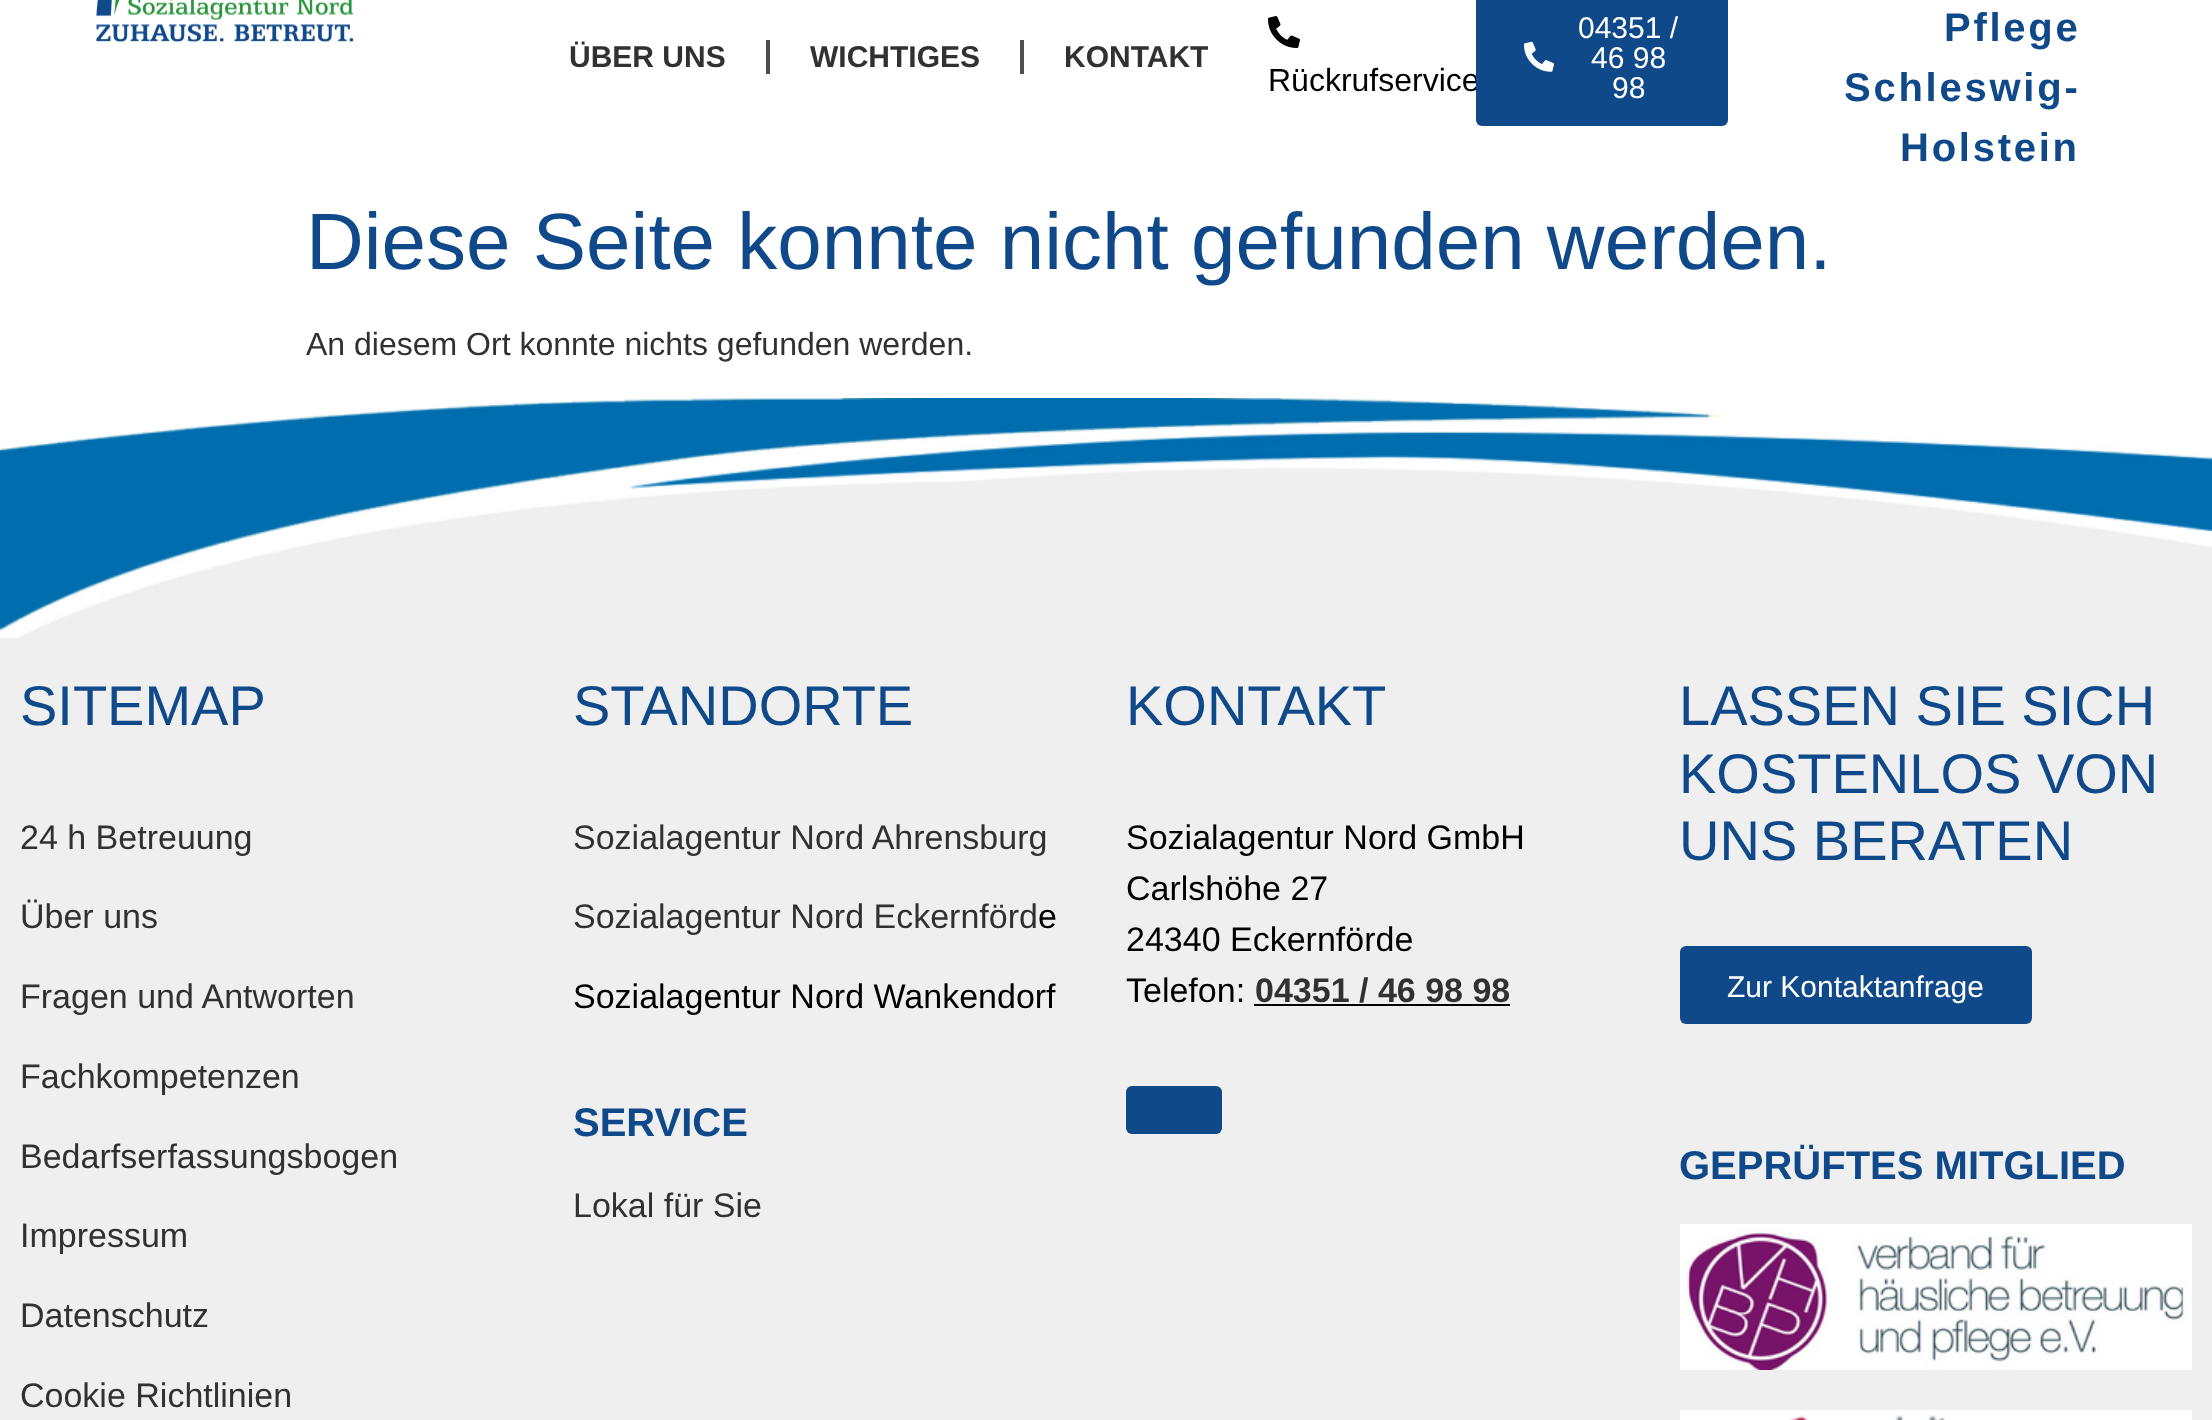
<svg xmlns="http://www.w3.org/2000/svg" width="2212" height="1420">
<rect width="100%" height="100%" fill="#fff"/>
<image x="96" y="0" width="258" height="43" href="media/1.png"/>
<text x="569" y="67" style="font-family:Liberation Sans;font-size:30px;font-weight:bold;fill:#313131">ÜBER UNS</text>
<rect x="766" y="40" width="4" height="34" fill="#4e4e4e"/>
<text x="810" y="67" style="font-family:Liberation Sans;font-size:30px;font-weight:bold;fill:#313131">WICHTIGES</text>
<rect x="1020" y="40" width="4" height="34" fill="#4e4e4e"/>
<text x="1064" y="67" style="font-family:Liberation Sans;font-size:30px;font-weight:bold;fill:#313131">KONTAKT</text>
<image x="1268" y="16" width="32" height="32" href="media/2.png"/>
<text x="1268" y="91" style="font-family:Liberation Sans;font-size:32px;fill:#000">Rückrufservice</text>
<rect x="1476" y="-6" width="252" height="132" rx="6" fill="#10498a"/>
<image x="1524" y="41" width="30" height="31" href="media/3.png"/>
<text x="1578" y="38" style="font-family:Liberation Sans;font-size:30px;fill:#fff">04351 /</text>
<text x="1591" y="68" style="font-family:Liberation Sans;font-size:30px;fill:#fff">46 98</text>
<text x="1612" y="98" style="font-family:Liberation Sans;font-size:30px;fill:#fff">98</text>
<text x="1944" y="41" style="font-family:Liberation Sans;font-size:40px;font-weight:bold;letter-spacing:2.75px;fill:#10498a">Pflege</text>
<text x="1844" y="101" style="font-family:Liberation Sans;font-size:40px;font-weight:bold;letter-spacing:2.75px;fill:#10498a">Schleswig-</text>
<text x="1900" y="161" style="font-family:Liberation Sans;font-size:40px;font-weight:bold;letter-spacing:2.75px;fill:#10498a">Holstein</text>
<text x="306" y="269" style="font-family:Liberation Sans;font-size:80px;fill:#10498a">Diese Seite konnte nicht gefunden werden.</text>
<text x="306" y="355" style="font-family:Liberation Sans;font-size:32px;fill:#313131">An diesem Ort konnte nichts gefunden werden.</text>
<image x="0" y="398" width="2212" height="240" href="media/4.png"/>
<rect y="638" width="2212" height="782" fill="#efefef"/>
<text x="20" y="725" style="font-family:Liberation Sans;font-size:56px;fill:#10498a">SITEMAP</text>
<text x="20" y="849" style="font-family:Liberation Sans;font-size:34px;fill:#313131">24 h Betreuung</text>
<text x="20" y="928" style="font-family:Liberation Sans;font-size:34px;fill:#313131">Über uns</text>
<text x="20" y="1008" style="font-family:Liberation Sans;font-size:34px;fill:#313131">Fragen und Antworten</text>
<text x="20" y="1088" style="font-family:Liberation Sans;font-size:34px;fill:#313131">Fachkompetenzen</text>
<text x="20" y="1168" style="font-family:Liberation Sans;font-size:34px;fill:#313131">Bedarfserfassungsbogen</text>
<text x="20" y="1247" style="font-family:Liberation Sans;font-size:34px;fill:#313131">Impressum</text>
<text x="20" y="1327" style="font-family:Liberation Sans;font-size:34px;fill:#313131">Datenschutz</text>
<text x="20" y="1407" style="font-family:Liberation Sans;font-size:34px;fill:#313131">Cookie Richtlinien</text>
<text x="573" y="725" style="font-family:Liberation Sans;font-size:56px;fill:#10498a">STANDORTE</text>
<text x="573" y="849" style="font-family:Liberation Sans;font-size:34px;fill:#313131">Sozialagentur Nord Ahrensburg</text>
<text x="573" y="928" style="font-family:Liberation Sans;font-size:34px;fill:#313131">Sozialagentur Nord Eckernförd</text>
<text x="1038" y="928" style="font-family:Liberation Sans;font-size:34px;fill:#000">e</text>
<text x="573" y="1008" style="font-family:Liberation Sans;font-size:34px;fill:#000">Sozialagentur Nord Wankendorf</text>
<text x="573" y="1136" style="font-family:Liberation Sans;font-size:40px;font-weight:bold;fill:#10498a">SERVICE</text>
<text x="573" y="1217" style="font-family:Liberation Sans;font-size:34px;fill:#313131">Lokal für Sie</text>
<text x="1126" y="725" style="font-family:Liberation Sans;font-size:56px;fill:#10498a">KONTAKT</text>
<text x="1126" y="849" style="font-family:Liberation Sans;font-size:34px;fill:#000">Sozialagentur Nord GmbH</text>
<text x="1126" y="900" style="font-family:Liberation Sans;font-size:34px;fill:#000">Carlshöhe 27</text>
<text x="1126" y="951" style="font-family:Liberation Sans;font-size:34px;fill:#000">24340 Eckernförde</text>
<text x="1126" y="1002" style="font-family:Liberation Sans;font-size:34px;fill:#000">Telefon:</text>
<text x="1255" y="1002" style="font-family:Liberation Sans;font-size:34px;font-weight:bold;fill:#313131">04351 / 46 98 98</text>
<rect x="1254" y="1004" width="256" height="2" fill="#000"/>
<rect x="1126" y="1086" width="96" height="48" rx="6" fill="#10498a"/>
<text x="1679" y="725" style="font-family:Liberation Sans;font-size:56px;fill:#10498a">LASSEN SIE SICH</text>
<text x="1679" y="793" style="font-family:Liberation Sans;font-size:56px;fill:#10498a">KOSTENLOS VON</text>
<text x="1679" y="860" style="font-family:Liberation Sans;font-size:56px;fill:#10498a">UNS BERATEN</text>
<rect x="1680" y="946" width="352" height="78" rx="6" fill="#10498a"/>
<text x="1727" y="997" style="font-family:Liberation Sans;font-size:30px;fill:#fff">Zur Kontaktanfrage</text>
<text x="1679" y="1179" style="font-family:Liberation Sans;font-size:40px;font-weight:bold;fill:#10498a">GEPRÜFTES MITGLIED</text>
<image x="1680" y="1224" width="512" height="146" href="media/5.png"/>
<rect x="1680" y="1410" width="512" height="10" fill="#fff"/>
<image x="1789" y="1415" width="156" height="5" href="media/6.png"/>
</svg>
